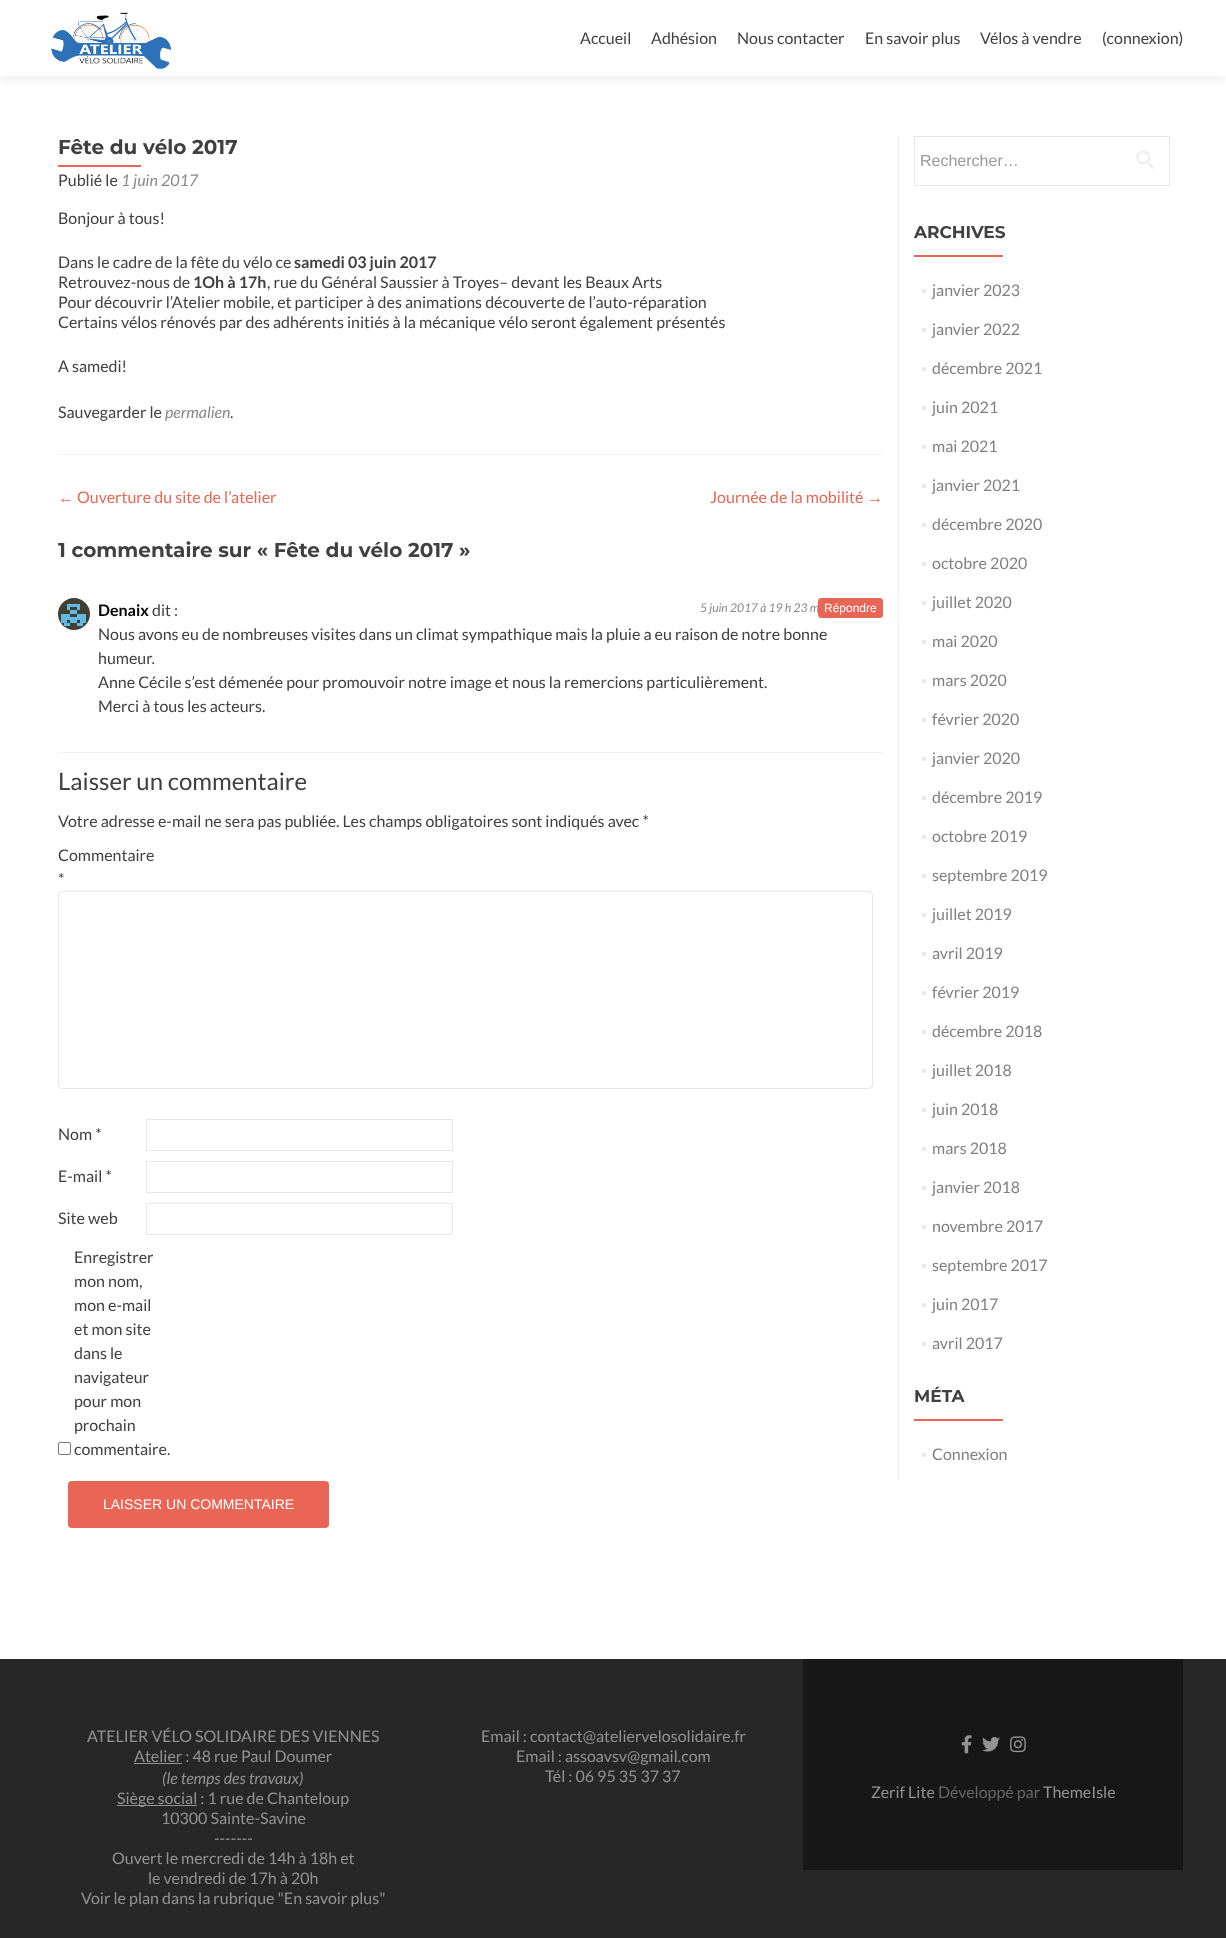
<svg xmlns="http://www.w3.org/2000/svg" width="1226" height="1938">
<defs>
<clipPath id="clip1"><rect x="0" y="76" width="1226" height="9"/></clipPath>
</defs>
<rect width="100%" height="100%" fill="#fff"/>
<g clip-path="url(#clip1)">
<rect y="5" width="1226" height="76" fill="#32323214" filter="blur(5.5px)"/>
</g>
<image x="51" y="12" width="121" height="58" href="media/1.png"/>
<text x="580" y="44" style="font-family:Lato;font-size:16px;fill:#404040">Accueil</text>
<text x="651" y="44" style="font-family:Lato;font-size:16px;fill:#404040">Adhésion</text>
<text x="737" y="44" style="font-family:Lato;font-size:16px;fill:#404040">Nous contacter</text>
<text x="865" y="44" style="font-family:Lato;font-size:16px;fill:#404040">En savoir plus</text>
<text x="980" y="44" style="font-family:Lato;font-size:16px;fill:#404040">Vélos à vendre</text>
<text x="1102" y="44" style="font-family:Lato;font-size:16px;fill:#404040">(connexion)</text>
<rect x="58" y="454" width="825" height="1" fill="#f2f2f2"/>
<text x="58" y="154" style="font-family:Montserrat;font-size:20px;font-weight:bold;fill:#404040">Fête du vélo 2017</text>
<rect x="58" y="165" width="83" height="2" fill="#e96656"/>
<text x="58" y="186" style="font-family:Lato;font-size:16px;fill:#404040">Publié le</text>
<text x="121" y="186" style="font-family:Lato;font-size:16px;font-style:italic;fill:#888">1 juin 2017</text>
<text x="58" y="224" style="font-family:Lato;font-size:16px;fill:#404040">Bonjour à tous!</text>
<text x="58" y="268" style="font-family:Lato;font-size:16px;fill:#404040">Dans le cadre de la fête du vélo ce</text>
<text x="294" y="268" style="font-family:Lato;font-size:16px;font-weight:bold;fill:#404040">samedi 03 juin 2017</text>
<text x="58" y="288" style="font-family:Lato;font-size:16px;fill:#404040">Retrouvez-nous de</text>
<text x="193" y="288" style="font-family:Lato;font-size:16px;font-weight:bold;fill:#404040">1Oh à 17h</text>
<text x="267" y="288" style="font-family:Lato;font-size:16px;fill:#404040">, rue du Général Saussier à Troyes– devant les Beaux Arts</text>
<text x="58" y="308" style="font-family:Lato;font-size:16px;fill:#404040">Pour découvrir l’Atelier mobile, et participer à des animations découverte de l’auto-réparation</text>
<text x="58" y="328" style="font-family:Lato;font-size:16px;fill:#404040">Certains vélos rénovés par des adhérents initiés à la mécanique vélo seront également présentés</text>
<text x="58" y="372" style="font-family:Lato;font-size:16px;fill:#404040">A samedi!</text>
<text x="58" y="418" style="font-family:Lato;font-size:16px;fill:#404040">Sauvegarder le</text>
<text x="165" y="418" style="font-family:Lato;font-size:16px;font-style:italic;fill:#888">permalien</text>
<text x="230" y="418" style="font-family:Lato;font-size:16px;fill:#404040">.</text>
<text x="58" y="503" style="font-family:Liberation Sans;font-size:16px;fill:#e96656">←</text>
<text x="77" y="503" style="font-family:Lato;font-size:16px;fill:#e96656">Ouverture du site de l’atelier</text>
<text x="710" y="503" style="font-family:Lato;font-size:16px;fill:#e96656">Journée de la mobilité</text>
<text x="867" y="503" style="font-family:Liberation Sans;font-size:16px;fill:#e96656">→</text>
<text x="58" y="557" style="font-family:Montserrat;font-size:20px;font-weight:bold;fill:#404040">1 commentaire sur « Fête du vélo 2017 »</text>
<rect x="58" y="752" width="825" height="1" fill="#f2f2f2"/>
<image x="58" y="598" width="32" height="32" href="media/2.png"/>
<text x="98" y="616" style="font-family:Lato;font-size:16px;font-weight:bold;fill:#000">Denaix</text>
<text x="152" y="616" style="font-family:Lato;font-size:16px;fill:#404040">dit :</text>
<text x="700" y="612" style="font-family:Lato;font-size:12px;font-style:italic;fill:#888">5 juin 2017 à 19 h 23 m</text>
<rect x="818.5" y="598.5" width="64" height="19" rx="2.5" fill="#e96656" stroke="#e96656"/>
<text x="824" y="612" style="font-family:Liberation Sans;font-size:12px;fill:#fff">Répondre</text>
<text x="98" y="640" style="font-family:Lato;font-size:16px;fill:#404040">Nous avons eu de nombreuses visites dans un climat sympathique mais la pluie a eu raison de notre bonne</text>
<text x="98" y="664" style="font-family:Lato;font-size:16px;fill:#404040">humeur.</text>
<text x="98" y="688" style="font-family:Lato;font-size:16px;fill:#404040">Anne Cécile s’est démenée pour promouvoir notre image et nous la remercions particulièrement.</text>
<text x="98" y="712" style="font-family:Lato;font-size:16px;fill:#404040">Merci à tous les acteurs.</text>
<text x="58" y="790" style="font-family:Lato;font-size:24px;fill:#404040">Laisser un commentaire</text>
<text x="58" y="827" style="font-family:Lato;font-size:16px;fill:#404040">Votre adresse e-mail ne sera pas publiée. Les champs obligatoires sont indiqués avec *</text>
<text x="58" y="861" style="font-family:Lato;font-size:16px;fill:#404040">Commentaire</text>
<text x="58" y="885" style="font-family:Lato;font-size:16px;fill:#404040">*</text>
<rect x="58.5" y="891.5" width="814" height="197" rx="3.5" fill="none" stroke="#e6e6e6"/>
<text x="58" y="1140" style="font-family:Lato;font-size:16px;fill:#404040">Nom *</text>
<rect x="146.5" y="1119.5" width="306" height="31" fill="none" stroke="#e6e6e6"/>
<text x="58" y="1182" style="font-family:Lato;font-size:16px;fill:#404040">E-mail *</text>
<rect x="146.5" y="1161.5" width="306" height="31" fill="none" stroke="#e6e6e6"/>
<text x="58" y="1224" style="font-family:Lato;font-size:16px;fill:#404040">Site web</text>
<rect x="146.5" y="1203.5" width="306" height="31" fill="none" stroke="#e6e6e6"/>
<rect x="58.5" y="1442.5" width="12" height="12" rx="1.5" fill="none" stroke="#767676"/>
<text x="74" y="1263" style="font-family:Lato;font-size:16px;fill:#404040">Enregistrer</text>
<text x="74" y="1287" style="font-family:Lato;font-size:16px;fill:#404040">mon nom,</text>
<text x="74" y="1311" style="font-family:Lato;font-size:16px;fill:#404040">mon e-mail</text>
<text x="74" y="1335" style="font-family:Lato;font-size:16px;fill:#404040">et mon site</text>
<text x="74" y="1359" style="font-family:Lato;font-size:16px;fill:#404040">dans le</text>
<text x="74" y="1383" style="font-family:Lato;font-size:16px;fill:#404040">navigateur</text>
<text x="74" y="1407" style="font-family:Lato;font-size:16px;fill:#404040">pour mon</text>
<text x="74" y="1431" style="font-family:Lato;font-size:16px;fill:#404040">prochain</text>
<text x="74" y="1455" style="font-family:Lato;font-size:16px;fill:#404040">commentaire.</text>
<rect x="68" y="1481" width="261" height="47" rx="4" fill="#e96656"/>
<text x="103" y="1509" style="font-family:Liberation Sans;font-size:14px;fill:#fff">LAISSER UN COMMENTAIRE</text>
<rect x="898" y="136" width="1" height="1345" fill="#f2f2f2"/>
<rect x="914.5" y="136.5" width="255" height="49" fill="none" stroke="#e6e6e6"/>
<text x="920" y="166" style="font-family:Liberation Sans;font-size:16px;fill:#999">Rechercher…</text>
<image x="1136" y="150" width="18" height="19" href="media/3.png"/>
<text x="914" y="238" style="font-family:Montserrat;font-size:17px;font-weight:bold;fill:#404040">ARCHIVES</text>
<rect x="914" y="255" width="89" height="2" fill="#e96656"/>
<rect x="922" y="289" width="4" height="4" fill="#e9e9e9"/>
<text x="932" y="296" style="font-family:Lato;font-size:16px;fill:#808080">janvier 2023</text>
<rect x="922" y="328" width="4" height="4" fill="#e9e9e9"/>
<text x="932" y="335" style="font-family:Lato;font-size:16px;fill:#808080">janvier 2022</text>
<rect x="922" y="367" width="4" height="4" fill="#e9e9e9"/>
<text x="932" y="374" style="font-family:Lato;font-size:16px;fill:#808080">décembre 2021</text>
<rect x="922" y="406" width="4" height="4" fill="#e9e9e9"/>
<text x="932" y="413" style="font-family:Lato;font-size:16px;fill:#808080">juin 2021</text>
<rect x="922" y="445" width="4" height="4" fill="#e9e9e9"/>
<text x="932" y="452" style="font-family:Lato;font-size:16px;fill:#808080">mai 2021</text>
<rect x="922" y="484" width="4" height="4" fill="#e9e9e9"/>
<text x="932" y="491" style="font-family:Lato;font-size:16px;fill:#808080">janvier 2021</text>
<rect x="922" y="523" width="4" height="4" fill="#e9e9e9"/>
<text x="932" y="530" style="font-family:Lato;font-size:16px;fill:#808080">décembre 2020</text>
<rect x="922" y="562" width="4" height="4" fill="#e9e9e9"/>
<text x="932" y="569" style="font-family:Lato;font-size:16px;fill:#808080">octobre 2020</text>
<rect x="922" y="601" width="4" height="4" fill="#e9e9e9"/>
<text x="932" y="608" style="font-family:Lato;font-size:16px;fill:#808080">juillet 2020</text>
<rect x="922" y="640" width="4" height="4" fill="#e9e9e9"/>
<text x="932" y="647" style="font-family:Lato;font-size:16px;fill:#808080">mai 2020</text>
<rect x="922" y="679" width="4" height="4" fill="#e9e9e9"/>
<text x="932" y="686" style="font-family:Lato;font-size:16px;fill:#808080">mars 2020</text>
<rect x="922" y="718" width="4" height="4" fill="#e9e9e9"/>
<text x="932" y="725" style="font-family:Lato;font-size:16px;fill:#808080">février 2020</text>
<rect x="922" y="757" width="4" height="4" fill="#e9e9e9"/>
<text x="932" y="764" style="font-family:Lato;font-size:16px;fill:#808080">janvier 2020</text>
<rect x="922" y="796" width="4" height="4" fill="#e9e9e9"/>
<text x="932" y="803" style="font-family:Lato;font-size:16px;fill:#808080">décembre 2019</text>
<rect x="922" y="835" width="4" height="4" fill="#e9e9e9"/>
<text x="932" y="842" style="font-family:Lato;font-size:16px;fill:#808080">octobre 2019</text>
<rect x="922" y="874" width="4" height="4" fill="#e9e9e9"/>
<text x="932" y="881" style="font-family:Lato;font-size:16px;fill:#808080">septembre 2019</text>
<rect x="922" y="913" width="4" height="4" fill="#e9e9e9"/>
<text x="932" y="920" style="font-family:Lato;font-size:16px;fill:#808080">juillet 2019</text>
<rect x="922" y="952" width="4" height="4" fill="#e9e9e9"/>
<text x="932" y="959" style="font-family:Lato;font-size:16px;fill:#808080">avril 2019</text>
<rect x="922" y="991" width="4" height="4" fill="#e9e9e9"/>
<text x="932" y="998" style="font-family:Lato;font-size:16px;fill:#808080">février 2019</text>
<rect x="922" y="1030" width="4" height="4" fill="#e9e9e9"/>
<text x="932" y="1037" style="font-family:Lato;font-size:16px;fill:#808080">décembre 2018</text>
<rect x="922" y="1069" width="4" height="4" fill="#e9e9e9"/>
<text x="932" y="1076" style="font-family:Lato;font-size:16px;fill:#808080">juillet 2018</text>
<rect x="922" y="1108" width="4" height="4" fill="#e9e9e9"/>
<text x="932" y="1115" style="font-family:Lato;font-size:16px;fill:#808080">juin 2018</text>
<rect x="922" y="1147" width="4" height="4" fill="#e9e9e9"/>
<text x="932" y="1154" style="font-family:Lato;font-size:16px;fill:#808080">mars 2018</text>
<rect x="922" y="1186" width="4" height="4" fill="#e9e9e9"/>
<text x="932" y="1193" style="font-family:Lato;font-size:16px;fill:#808080">janvier 2018</text>
<rect x="922" y="1225" width="4" height="4" fill="#e9e9e9"/>
<text x="932" y="1232" style="font-family:Lato;font-size:16px;fill:#808080">novembre 2017</text>
<rect x="922" y="1264" width="4" height="4" fill="#e9e9e9"/>
<text x="932" y="1271" style="font-family:Lato;font-size:16px;fill:#808080">septembre 2017</text>
<rect x="922" y="1303" width="4" height="4" fill="#e9e9e9"/>
<text x="932" y="1310" style="font-family:Lato;font-size:16px;fill:#808080">juin 2017</text>
<rect x="922" y="1342" width="4" height="4" fill="#e9e9e9"/>
<text x="932" y="1349" style="font-family:Lato;font-size:16px;fill:#808080">avril 2017</text>
<text x="914" y="1402" style="font-family:Montserrat;font-size:17px;font-weight:bold;fill:#404040">MÉTA</text>
<rect x="914" y="1419" width="89" height="2" fill="#e96656"/>
<rect x="922" y="1453" width="4" height="4" fill="#e9e9e9"/>
<text x="932" y="1460" style="font-family:Lato;font-size:16px;fill:#808080">Connexion</text>
<rect y="1659" width="1226" height="279" fill="#272727"/>
<text x="87" y="1742" style="font-family:Lato;font-size:16px;fill:#939393">ATELIER VÉLO SOLIDAIRE DES VIENNES</text>
<text x="134" y="1762" style="font-family:Lato;font-size:16px;fill:#939393">Atelier : 48 rue Paul Doumer</text>
<rect x="134" y="1763" width="48" height="1" fill="#939393"/>
<text x="162" y="1784" style="font-family:Lato;font-size:16px;font-style:italic;fill:#939393">(le temps des travaux)</text>
<rect x="117" y="1805" width="80" height="1" fill="#939393"/>
<text x="117" y="1804" style="font-family:Lato;font-size:16px;fill:#939393">Siège social : 1 rue de Chanteloup</text>
<text x="161" y="1824" style="font-family:Lato;font-size:16px;fill:#939393">10300 Sainte-Savine</text>
<text x="214" y="1844" style="font-family:Lato;font-size:16px;fill:#939393">-------</text>
<text x="112" y="1864" style="font-family:Lato;font-size:16px;fill:#939393">Ouvert le mercredi de 14h à 18h et</text>
<text x="148" y="1884" style="font-family:Lato;font-size:16px;fill:#939393">le vendredi de 17h à 20h</text>
<text x="81" y="1904" style="font-family:Lato;font-size:16px;fill:#939393">Voir le plan dans la rubrique "En savoir plus"</text>
<text x="481" y="1742" style="font-family:Lato;font-size:16px;fill:#939393">Email : contact@ateliervelosolidaire.fr</text>
<text x="516" y="1762" style="font-family:Lato;font-size:16px;fill:#939393">Email : assoavsv@gmail.com</text>
<text x="545" y="1782" style="font-family:Lato;font-size:16px;fill:#939393">Tél : 06 95 35 37 37</text>
<rect x="803" y="1659" width="380" height="211" fill="#171717"/>
<image x="961" y="1735" width="11" height="19" href="media/4.png"/>
<image x="982" y="1737" width="18" height="15" href="media/5.png"/>
<image x="1010" y="1736" width="16" height="17" href="media/6.png"/>
<text x="871" y="1798" style="font-family:Lato;font-size:16px;fill:#939393">Zerif Lite</text>
<text x="938" y="1798" style="font-family:Lato;font-size:16px;fill:#666">Développé par</text>
<text x="1043" y="1798" style="font-family:Lato;font-size:16px;fill:#939393">ThemeIsle</text>
</svg>
